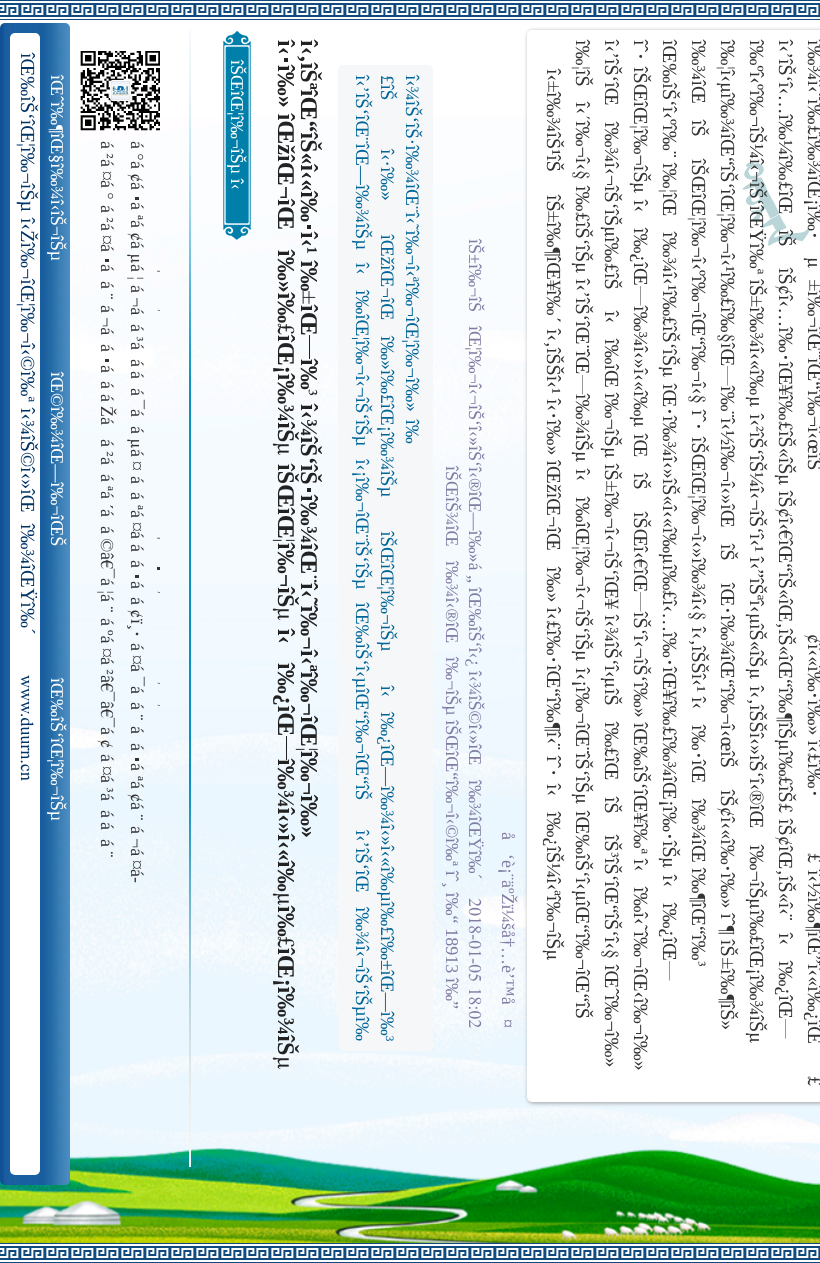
<svg xmlns="http://www.w3.org/2000/svg" width="820" height="1263">
<rect width="100%" height="100%" fill="#fff"/>
<image x="0" y="0" width="820" height="20" href="media/1.png"/>
<image x="0" y="117" width="820" height="1126" href="media/78.png"/>
<image x="0" y="23" width="70" height="1162" href="media/2.png"/>
<rect x="10" y="33" width="30" height="1142" rx="5" fill="#fff"/>
<text x="21" y="53" transform="rotate(90 21 53)" word-spacing="1" style="font-family:Liberation Serif;font-size:20px;fill:#036">îŒ‰îŠ‘îŒ¦î‰¬îŠµ î‹Žî‰¬îŒ¦î‰¬î‹©î‰ª î‹¾îŠ©î‹»îŒ</text>
<text x="21" y="524" transform="rotate(90 21 524)" style="font-family:Liberation Serif;font-size:20px;fill:#036">î‰¾îŒŸî‰´</text>
<image x="20" y="675" width="14" height="106" href="media/3.png"/>
<text x="51" y="75" transform="rotate(90 51 75)" style="font-family:Liberation Serif;font-size:18px;fill:#fff">îŒˆî‰¶îŒ§î‰¾î‹îŠ¬îŠµ</text>
<text x="51" y="372" transform="rotate(90 51 372)" style="font-family:Liberation Serif;font-size:18px;fill:#fff">îŒ©î‰¾îŒ—î‰¬îŒŠ</text>
<text x="51" y="678" transform="rotate(90 51 678)" style="font-family:Liberation Serif;font-size:18px;fill:#fff">îŒ‰îŠ‘îŒ¦î‰¬îŠµ</text>
<image x="80" y="51" width="80" height="80" href="media/4.png"/>
<text x="101" y="141" transform="rotate(90 101 141)" style="font-family:Liberation Serif;font-size:18px;fill:#333">á</text>
<text x="131" y="141" transform="rotate(90 131 141)" style="font-family:Liberation Serif;font-size:18px;fill:#333">á</text>
<image x="106" y="153" width="8" height="6" href="media/5.png"/>
<image x="137" y="154" width="7" height="6" href="media/6.png"/>
<text x="101" y="159" transform="rotate(90 101 159)" style="font-family:Liberation Serif;font-size:18px;fill:#333">á</text>
<text x="131" y="161" transform="rotate(90 131 161)" style="font-family:Liberation Serif;font-size:18px;fill:#333">á</text>
<image x="102" y="171" width="10" height="9" href="media/7.png"/>
<image x="127" y="174" width="16" height="8" href="media/8.png"/>
<text x="101" y="180" transform="rotate(90 101 180)" style="font-family:Liberation Serif;font-size:18px;fill:#333">á</text>
<text x="131" y="182" transform="rotate(90 131 182)" style="font-family:Liberation Serif;font-size:18px;fill:#333">á</text>
<image x="107" y="193" width="7" height="6" href="media/6.png"/>
<text x="101" y="205" transform="rotate(90 101 205)" style="font-family:Liberation Serif;font-size:18px;fill:#333">á</text>
<text x="131" y="202" transform="rotate(90 131 202)" style="font-family:Liberation Serif;font-size:18px;fill:#333">á</text>
<rect x="135" y="197" width="4" height="3" fill="#333"/>
<image x="106" y="217" width="8" height="6" href="media/5.png"/>
<text x="131" y="215" transform="rotate(90 131 215)" style="font-family:Liberation Serif;font-size:18px;fill:#333">ªá</text>
<text x="101" y="223" transform="rotate(90 101 223)" style="font-family:Liberation Serif;font-size:18px;fill:#333">á</text>
<image x="102" y="235" width="10" height="9" href="media/7.png"/>
<image x="127" y="233" width="16" height="8" href="media/9.png"/>
<text x="101" y="244" transform="rotate(90 101 244)" style="font-family:Liberation Serif;font-size:18px;fill:#333">á</text>
<text x="131" y="241" transform="rotate(90 131 241)" style="font-family:Liberation Serif;font-size:18px;fill:#333">á</text>
<image x="127" y="254" width="13" height="9" href="media/10.png"/>
<text x="101" y="264" transform="rotate(90 101 264)" style="font-family:Liberation Serif;font-size:18px;fill:#333">á</text>
<rect x="105" y="259" width="4" height="3" fill="#333"/>
<text x="131" y="264" transform="rotate(90 131 264)" style="font-family:Liberation Serif;font-size:18px;fill:#333">á</text>
<image x="157" y="270" width="3" height="2" href="media/11.png"/>
<image x="127" y="277" width="17" height="2" href="media/12.png"/>
<text x="101" y="281" transform="rotate(90 101 281)" style="font-family:Liberation Serif;font-size:18px;fill:#333">á</text>
<text x="131" y="285" transform="rotate(90 131 285)" style="font-family:Liberation Serif;font-size:18px;fill:#333">á</text>
<image x="110" y="293" width="3" height="6" href="media/13.png"/>
<text x="101" y="305" transform="rotate(90 101 305)" style="font-family:Liberation Serif;font-size:18px;fill:#333">á</text>
<text x="131" y="297" transform="rotate(90 131 297)" style="font-family:Liberation Serif;font-size:18px;fill:#333">¬á</text>
<image x="157" y="309" width="3" height="2" href="media/14.png"/>
<text x="101" y="317" transform="rotate(90 101 317)" style="font-family:Liberation Serif;font-size:18px;fill:#333">¬á</text>
<text x="131" y="324" transform="rotate(90 131 324)" style="font-family:Liberation Serif;font-size:18px;fill:#333">á</text>
<image x="136" y="336" width="8" height="5" href="media/15.png"/>
<text x="101" y="344" transform="rotate(90 101 344)" style="font-family:Liberation Serif;font-size:18px;fill:#333">á</text>
<text x="131" y="342" transform="rotate(90 131 342)" style="font-family:Liberation Serif;font-size:18px;fill:#333">á</text>
<text x="131" y="359" transform="rotate(90 131 359)" style="font-family:Liberation Serif;font-size:18px;fill:#333">á</text>
<text x="101" y="365" transform="rotate(90 101 365)" style="font-family:Liberation Serif;font-size:18px;fill:#333">á</text>
<rect x="105" y="359" width="4" height="3" fill="#333"/>
<text x="131" y="371" transform="rotate(90 131 371)" style="font-family:Liberation Serif;font-size:18px;fill:#333">á</text>
<text x="101" y="381" transform="rotate(90 101 381)" style="font-family:Liberation Serif;font-size:18px;fill:#333">á</text>
<text x="131" y="388" transform="rotate(90 131 388)" style="font-family:Liberation Serif;font-size:18px;fill:#333">á</text>
<text x="101" y="394" transform="rotate(90 101 394)" style="font-family:Liberation Serif;font-size:18px;fill:#333">á</text>
<text x="101" y="406" transform="rotate(90 101 406)" style="font-family:Liberation Serif;font-size:18px;fill:#333">Žá</text>
<text x="131" y="400" transform="rotate(90 131 400)" style="font-family:Liberation Serif;font-size:18px;fill:#333">¯á</text>
<text x="131" y="426" transform="rotate(90 131 426)" style="font-family:Liberation Serif;font-size:18px;fill:#333">á</text>
<text x="101" y="439" transform="rotate(90 101 439)" style="font-family:Liberation Serif;font-size:18px;fill:#333">á</text>
<image x="127" y="439" width="13" height="9" href="media/16.png"/>
<image x="106" y="451" width="8" height="6" href="media/17.png"/>
<text x="131" y="449" transform="rotate(90 131 449)" style="font-family:Liberation Serif;font-size:18px;fill:#333">á</text>
<text x="101" y="457" transform="rotate(90 101 457)" style="font-family:Liberation Serif;font-size:18px;fill:#333">á</text>
<image x="132" y="461" width="10" height="9" href="media/18.png"/>
<text x="101" y="474" transform="rotate(90 101 474)" style="font-family:Liberation Serif;font-size:18px;fill:#333">á</text>
<text x="131" y="476" transform="rotate(90 131 476)" style="font-family:Liberation Serif;font-size:18px;fill:#333">á</text>
<text x="101" y="486" transform="rotate(90 101 486)" style="font-family:Liberation Serif;font-size:18px;fill:#333">ªá</text>
<text x="131" y="492" transform="rotate(90 131 492)" style="font-family:Liberation Serif;font-size:18px;fill:#333">á</text>
<text x="101" y="509" transform="rotate(90 101 509)" style="font-family:Liberation Serif;font-size:18px;fill:#333">á</text>
<path d="M113 508.5v-2l-3-1v.5z" fill="#333"/>
<text x="131" y="505" transform="rotate(90 131 505)" style="font-family:Liberation Serif;font-size:18px;fill:#333">ªá</text>
<text x="101" y="526" transform="rotate(90 101 526)" style="font-family:Liberation Serif;font-size:18px;fill:#333">á</text>
<image x="132" y="522" width="10" height="9" href="media/18.png"/>
<text x="131" y="531" transform="rotate(90 131 531)" style="font-family:Liberation Serif;font-size:18px;fill:#333">á</text>
<image x="157" y="537" width="3" height="2" href="media/19.png"/>
<image x="100" y="539" width="14" height="13" href="media/20.png"/>
<text x="131" y="544" transform="rotate(90 131 544)" style="font-family:Liberation Serif;font-size:18px;fill:#333">á</text>
<image x="100" y="559" width="14" height="10" href="media/21.png"/>
<text x="101" y="552" transform="rotate(90 101 552)" style="font-family:Liberation Serif;font-size:18px;fill:#333">â</text>
<text x="131" y="560" transform="rotate(90 131 560)" style="font-family:Liberation Serif;font-size:18px;fill:#333">á</text>
<rect x="157" y="567" width="3" height="3" fill="#333"/>
<text x="101" y="569" transform="rotate(90 101 569)" style="font-family:Liberation Serif;font-size:18px;fill:#333">¯á</text>
<text x="131" y="581" transform="rotate(90 131 581)" style="font-family:Liberation Serif;font-size:18px;fill:#333">á</text>
<rect x="135" y="575" width="4" height="3" fill="#333"/>
<image x="97" y="591" width="17" height="2" href="media/22.png"/>
<image x="157" y="591" width="3" height="2" href="media/23.png"/>
<text x="101" y="594" transform="rotate(90 101 594)" style="font-family:Liberation Serif;font-size:18px;fill:#333">á</text>
<text x="131" y="597" transform="rotate(90 131 597)" style="font-family:Liberation Serif;font-size:18px;fill:#333">á</text>
<image x="110" y="606" width="3" height="6" href="media/24.png"/>
<image x="127" y="610" width="16" height="8" href="media/25.png"/>
<text x="101" y="618" transform="rotate(90 101 618)" style="font-family:Liberation Serif;font-size:18px;fill:#333">á</text>
<text x="131" y="619" transform="rotate(90 131 619)" style="font-family:Liberation Serif;font-size:18px;fill:#333">ï¸</text>
<text x="101" y="630" transform="rotate(90 101 630)" style="font-family:Liberation Serif;font-size:18px;fill:#333">ºá</text>
<image x="135" y="632" width="4" height="4" href="media/26.png"/>
<text x="131" y="643" transform="rotate(90 131 643)" style="font-family:Liberation Serif;font-size:18px;fill:#333">á</text>
<image x="102" y="648" width="10" height="9" href="media/27.png"/>
<text x="101" y="657" transform="rotate(90 101 657)" style="font-family:Liberation Serif;font-size:18px;fill:#333">á</text>
<image x="132" y="655" width="10" height="9" href="media/28.png"/>
<image x="106" y="669" width="8" height="6" href="media/29.png"/>
<text x="131" y="664" transform="rotate(90 131 664)" style="font-family:Liberation Serif;font-size:18px;fill:#333">á</text>
<image x="100" y="682" width="14" height="10" href="media/30.png"/>
<text x="101" y="675" transform="rotate(90 101 675)" style="font-family:Liberation Serif;font-size:18px;fill:#333">â</text>
<text x="131" y="677" transform="rotate(90 131 677)" style="font-family:Liberation Serif;font-size:18px;fill:#333">¯á</text>
<image x="157" y="682" width="3" height="2" href="media/31.png"/>
<image x="100" y="708" width="14" height="10" href="media/32.png"/>
<text x="101" y="692" transform="rotate(90 101 692)" style="font-family:Liberation Serif;font-size:18px;fill:#333">¯â</text>
<text x="131" y="702" transform="rotate(90 131 702)" style="font-family:Liberation Serif;font-size:18px;fill:#333">á</text>
<image x="157" y="704" width="3" height="2" href="media/31.png"/>
<image x="140" y="714" width="3" height="6" href="media/33.png"/>
<text x="101" y="718" transform="rotate(90 101 718)" style="font-family:Liberation Serif;font-size:18px;fill:#333">¯á</text>
<text x="131" y="726" transform="rotate(90 131 726)" style="font-family:Liberation Serif;font-size:18px;fill:#333">á</text>
<image x="97" y="740" width="16" height="8" href="media/34.png"/>
<text x="131" y="743" transform="rotate(90 131 743)" style="font-family:Liberation Serif;font-size:18px;fill:#333">á</text>
<text x="101" y="754" transform="rotate(90 101 754)" style="font-family:Liberation Serif;font-size:18px;fill:#333">á</text>
<image x="102" y="766" width="10" height="9" href="media/35.png"/>
<text x="131" y="763" transform="rotate(90 131 763)" style="font-family:Liberation Serif;font-size:18px;fill:#333">á</text>
<rect x="135" y="758" width="4" height="3" fill="#333"/>
<text x="101" y="775" transform="rotate(90 101 775)" style="font-family:Liberation Serif;font-size:18px;fill:#333">á</text>
<text x="131" y="776" transform="rotate(90 131 776)" style="font-family:Liberation Serif;font-size:18px;fill:#333">ªá</text>
<image x="106" y="787" width="8" height="5" href="media/36.png"/>
<text x="101" y="793" transform="rotate(90 101 793)" style="font-family:Liberation Serif;font-size:18px;fill:#333">á</text>
<image x="127" y="794" width="16" height="8" href="media/37.png"/>
<text x="131" y="802" transform="rotate(90 131 802)" style="font-family:Liberation Serif;font-size:18px;fill:#333">á</text>
<text x="101" y="810" transform="rotate(90 101 810)" style="font-family:Liberation Serif;font-size:18px;fill:#333">á</text>
<image x="140" y="814" width="3" height="6" href="media/38.png"/>
<text x="101" y="822" transform="rotate(90 101 822)" style="font-family:Liberation Serif;font-size:18px;fill:#333">á</text>
<text x="131" y="826" transform="rotate(90 131 826)" style="font-family:Liberation Serif;font-size:18px;fill:#333">á</text>
<text x="101" y="839" transform="rotate(90 101 839)" style="font-family:Liberation Serif;font-size:18px;fill:#333">á</text>
<text x="131" y="838" transform="rotate(90 131 838)" style="font-family:Liberation Serif;font-size:18px;fill:#333">¬á</text>
<image x="110" y="851" width="3" height="6" href="media/39.png"/>
<image x="132" y="860" width="10" height="9" href="media/40.png"/>
<text x="131" y="869" transform="rotate(90 131 869)" style="font-family:Liberation Serif;font-size:18px;fill:#333">á-</text>
<image x="189" y="30" width="2" height="1137" href="media/41.png"/>
<image x="223" y="31" width="28" height="209" href="media/42.png"/>
<text x="231" y="60" transform="rotate(90 231 60)" style="font-family:Liberation Serif;font-size:18px;fill:#fff">îŠŒîŒ¦î‰¬îŠµ î‹</text>
<text x="278" y="40" transform="rotate(90 278 40)" style="font-family:Liberation Serif;font-size:24px;font-weight:bold;fill:#222">î‹</text>
<rect x="284" y="58" width="4" height="4" fill="#222"/>
<text x="301" y="40" transform="rotate(90 301 40)" style="font-family:Liberation Serif;font-size:24px;font-weight:bold;fill:#222">î‹‚îŠªîŒ“îŠ«î‹«î‰</text>
<text x="278" y="65" transform="rotate(90 278 65)" style="font-family:Liberation Serif;font-size:24px;font-weight:bold;fill:#222">î‰» îŒžîŒ¬îŒ</text>
<text x="278" y="250" transform="rotate(90 278 250)" style="font-family:Liberation Serif;font-size:24px;font-weight:bold;fill:#222">î‰»î‰</text>
<text x="301" y="232" transform="rotate(90 301 232)" word-spacing="1" style="font-family:Liberation Serif;font-size:24px;font-weight:bold;fill:#222">î‹¹ î‰</text>
<rect x="307" y="225" width="4" height="4" fill="#222"/>
<image x="302" y="291" width="14" height="13" href="media/43.png"/>
<image x="277" y="323" width="18" height="12" href="media/44.png"/>
<text x="301" y="305" transform="rotate(90 301 305)" style="font-family:Liberation Serif;font-size:24px;font-weight:bold;fill:#222">îŒ</text>
<text x="278" y="335" transform="rotate(90 278 335)" style="font-family:Liberation Serif;font-size:24px;font-weight:bold;fill:#222">îŒ¡î‰¾îŠ</text>
<rect x="309" y="335" width="1" height="24" fill="#222"/>
<image x="308" y="389" width="10" height="7" href="media/45.png"/>
<text x="301" y="359" transform="rotate(90 301 359)" style="font-family:Liberation Serif;font-size:24px;font-weight:bold;fill:#222">î‰</text>
<image x="272" y="443" width="17" height="12" href="media/46.png"/>
<text x="301" y="404" transform="rotate(90 301 404)" style="font-family:Liberation Serif;font-size:24px;font-weight:bold;fill:#222">î‹¾îŠ‘îŠ</text>
<text x="278" y="464" transform="rotate(90 278 464)" style="font-family:Liberation Serif;font-size:24px;font-weight:bold;fill:#222">îŠŒîŒ</text>
<rect x="307" y="488" width="4" height="4" fill="#222"/>
<text x="301" y="495" transform="rotate(90 301 495)" style="font-family:Liberation Serif;font-size:24px;font-weight:bold;fill:#222">î‰¾îŒ</text>
<image x="272" y="539" width="23" height="2" href="media/47.png"/>
<text x="278" y="543" transform="rotate(90 278 543)" style="font-family:Liberation Serif;font-size:24px;font-weight:bold;fill:#222">î‰¬îŠ</text>
<image x="314" y="575" width="3" height="8" href="media/48.png"/>
<image x="272" y="608" width="17" height="12" href="media/49.png"/>
<text x="301" y="583" transform="rotate(90 301 583)" style="font-family:Liberation Serif;font-size:24px;font-weight:bold;fill:#222">î‹˜î‰¬î‹ªî‰¬îŒ</text>
<text x="278" y="629" transform="rotate(90 278 629)" style="font-family:Liberation Serif;font-size:24px;font-weight:bold;fill:#222">î‹</text>
<text x="278" y="663" transform="rotate(90 278 663)" style="font-family:Liberation Serif;font-size:24px;font-weight:bold;fill:#222">î‰¿îŒ</text>
<rect x="286" y="736" width="1" height="24" fill="#222"/>
<image x="295" y="748" width="23" height="2" href="media/50.png"/>
<text x="278" y="759" transform="rotate(90 278 759)" style="font-family:Liberation Serif;font-size:24px;font-weight:bold;fill:#222">î‰¾î‹»î‹«î‰</text>
<text x="301" y="751" transform="rotate(90 301 751)" style="font-family:Liberation Serif;font-size:24px;font-weight:bold;fill:#222">î‰¬î‰»</text>
<image x="272" y="893" width="17" height="12" href="media/51.png"/>
<image x="277" y="936" width="18" height="12" href="media/52.png"/>
<text x="278" y="906" transform="rotate(90 278 906)" style="font-family:Liberation Serif;font-size:24px;font-weight:bold;fill:#222">î‰</text>
<text x="278" y="948" transform="rotate(90 278 948)" style="font-family:Liberation Serif;font-size:24px;font-weight:bold;fill:#222">îŒ¡î‰¾îŠ</text>
<image x="272" y="1057" width="17" height="12" href="media/53.png"/>
<rect x="338" y="65" width="95" height="986" rx="5" fill="#f6f7f8"/>
<text x="356" y="75" transform="rotate(90 356 75)" word-spacing="8" style="font-family:Liberation Serif;font-size:19px;fill:#069">î‹’îŠ‘îŒ¨îŒ—î‰¾îŠµ î‹</text>
<text x="381" y="75" transform="rotate(90 381 75)" style="font-family:Liberation Serif;font-size:19px;fill:#069">£îŠ</text>
<text x="406" y="75" transform="rotate(90 406 75)" word-spacing="3" style="font-family:Liberation Serif;font-size:19px;fill:#069">î‹¾îŠ‘îŠ·î‰¾îŒ¨î‹˜î‰¬î‹ªî‰¬îŒ¦î‰¬î‰» î‰</text>
<text x="381" y="149" transform="rotate(90 381 149)" word-spacing="29" style="font-family:Liberation Serif;font-size:19px;fill:#069">î‹·î‰» îŒžîŒ¬îŒ</text>
<text x="356" y="290" transform="rotate(90 356 290)" word-spacing="8" style="font-family:Liberation Serif;font-size:19px;fill:#069">î‰îŒ¦î‰¬î‹¬îŠ‘îŠµ î‹¡î‰¬îŒ¨îŠ‘îŠµ îŒ‰îŠ‘î‹µîŒ“î‰¬îŒ“îŠ</text>
<text x="381" y="336" transform="rotate(90 381 336)" word-spacing="29" style="font-family:Liberation Serif;font-size:19px;fill:#069">î‰»î‰£îŒ¡î‰¾îŠµ îŠŒîŒ¦î‰¬îŠµ î‹</text>
<text x="356" y="830" transform="rotate(90 356 830)" style="font-family:Liberation Serif;font-size:19px;fill:#069">î‹’îŠ‘îŒ</text>
<text x="381" y="712" transform="rotate(90 381 712)" style="font-family:Liberation Serif;font-size:19px;fill:#069">î‰¿îŒ—î‰¾î‹»î‹«î‰µî‰£î‰±îŒ—î‰³</text>
<text x="356" y="907" transform="rotate(90 356 907)" style="font-family:Liberation Serif;font-size:19px;fill:#069">î‰¾î‹¬îŠ‘îŠµî‰</text>
<text x="446" y="466" transform="rotate(90 446 466)" style="font-family:Liberation Serif;font-size:18px;fill:#817ca3">îŠŒîŠ¾îŒ</text>
<text x="446" y="561" transform="rotate(90 446 561)" style="font-family:Liberation Serif;font-size:18px;fill:#817ca3">î‰¾î‹®îŒ</text>
<text x="446" y="657" transform="rotate(90 446 657)" word-spacing="0.25" style="font-family:Liberation Serif;font-size:18px;fill:#817ca3">î‰¬îŠµ îŠŒîŒ“î‰¬î‹©î‰ª îˆ¸ î‰“ 18913 î‰”</text>
<text x="469" y="239" transform="rotate(90 469 239)" style="font-family:Liberation Serif;font-size:18px;fill:#817ca3">îŠ±î‰¬îŠ</text>
<text x="469" y="326" transform="rotate(90 469 326)" style="font-family:Liberation Serif;font-size:18px;fill:#817ca3">îŒ¦î‰¬î‹¬îŠ‘î‹»îŠ‘î‹®îŒ—î‰»á „ îŒ‰îŠ‘î‹¿ î‹¾îŠ©î‹»îŒ</text>
<text x="469" y="780" transform="rotate(90 469 780)" style="font-family:Liberation Serif;font-size:18px;fill:#817ca3">î‰¾îŒŸî‰´</text>
<image x="468" y="898" width="14" height="130" href="media/54.png"/>
<text x="502" y="832" transform="rotate(90 502 832)" style="font-family:Liberation Serif;font-size:18px;fill:#817ca3">å</text>
<text x="502" y="854" transform="rotate(90 502 854)" style="font-family:Liberation Serif;font-size:18px;fill:#817ca3">‘è¡¨äºŽï¼šå†…è’™å</text>
<text x="502" y="1019" transform="rotate(90 502 1019)" style="font-family:Liberation Serif;font-size:18px;fill:#817ca3">¤</text>
<rect x="528" y="31" width="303" height="1072" rx="5" fill="#9c9c9c" filter="blur(2px)"/>
<rect x="527" y="30" width="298" height="1072" rx="5" fill="#fff"/>
<image x="742" y="162" width="69" height="84" href="media/55.png"/>
<text x="576" y="40" transform="rotate(90 576 40)" style="font-family:Liberation Serif;font-size:20px;fill:#333">î‰</text>
<text x="605" y="40" transform="rotate(90 605 40)" style="font-family:Liberation Serif;font-size:20px;fill:#333">î‹’îŠ‘îŒ</text>
<text x="634" y="40" transform="rotate(90 634 40)" style="font-family:Liberation Serif;font-size:20px;fill:#333">îˆ</text>
<text x="663" y="40" transform="rotate(90 663 40)" style="font-family:Liberation Serif;font-size:20px;fill:#333">îŒ‰îŠ‘î‹ºî‰</text>
<text x="692" y="40" transform="rotate(90 692 40)" style="font-family:Liberation Serif;font-size:20px;fill:#333">î‰¾îŒ</text>
<text x="721" y="40" transform="rotate(90 721 40)" style="font-family:Liberation Serif;font-size:20px;fill:#333">î‰</text>
<text x="750" y="40" transform="rotate(90 750 40)" style="font-family:Liberation Serif;font-size:20px;fill:#333">î‰ºî‹ºî‰¬îŠ¼î‹¬îŠ‘îŒŸî‰ª îŠ</text>
<text x="779" y="40" transform="rotate(90 779 40)" style="font-family:Liberation Serif;font-size:20px;fill:#333">î‹’îŠ‘î‹…î‰¼î‰</text>
<text x="808" y="40" transform="rotate(90 808 40)" style="font-family:Liberation Serif;font-size:20px;fill:#333">î‰¾î‹</text>
<image x="639" y="54" width="4" height="4" href="media/56.png"/>
<text x="547" y="69" transform="rotate(90 547 69)" style="font-family:Liberation Serif;font-size:20px;fill:#333">î‹</text>
<image x="571" y="67" width="19" height="2" href="media/57.png"/>
<text x="634" y="67" transform="rotate(90 634 67)" style="font-family:Liberation Serif;font-size:20px;fill:#333">îŠŒîŒ</text>
<image x="716" y="67" width="19" height="2" href="media/57.png"/>
<text x="576" y="70" transform="rotate(90 576 70)" style="font-family:Liberation Serif;font-size:20px;fill:#333">îŠ</text>
<text x="721" y="70" transform="rotate(90 721 70)" style="font-family:Liberation Serif;font-size:20px;fill:#333">î‹</text>
<image x="548" y="81" width="11" height="11" href="media/58.png"/>
<image x="716" y="83" width="14" height="10" href="media/59.png"/>
<text x="547" y="92" transform="rotate(90 547 92)" style="font-family:Liberation Serif;font-size:20px;fill:#333">î‰¾îŠ¹îŠ</text>
<text x="721" y="93" transform="rotate(90 721 93)" style="font-family:Liberation Serif;font-size:20px;fill:#333">î‰¾îŒ“îŠ‘îŒ</text>
<image x="819" y="93" width="1" height="7" href="media/60.png"/>
<text x="576" y="102" transform="rotate(90 576 102)" style="font-family:Liberation Serif;font-size:20px;fill:#333">î‹</text>
<path d="M589.5 119.5v-2l-3.5-1z" fill="#333"/>
<text x="808" y="99" transform="rotate(90 808 99)" style="font-family:Liberation Serif;font-size:20px;fill:#333">î‰</text>
<text x="576" y="121" transform="rotate(90 576 121)" style="font-family:Liberation Serif;font-size:20px;fill:#333">î‰¬î‹</text>
<text x="605" y="122" transform="rotate(90 605 122)" style="font-family:Liberation Serif;font-size:20px;fill:#333">î‰¾î‹¬îŠ‘îŠ</text>
<image x="629" y="126" width="19" height="2" href="media/57.png"/>
<text x="692" y="120" transform="rotate(90 692 120)" style="font-family:Liberation Serif;font-size:20px;fill:#333">îŠ</text>
<image x="807" y="125" width="13" height="10" href="media/61.png"/>
<text x="634" y="129" transform="rotate(90 634 129)" style="font-family:Liberation Serif;font-size:20px;fill:#333">î‰¬îŠ</text>
<image x="674" y="151" width="2" height="7" href="media/62.png"/>
<text x="808" y="135" transform="rotate(90 808 135)" style="font-family:Liberation Serif;font-size:20px;fill:#333">î‰¾îŒ¡î‰</text>
<image x="572" y="171" width="18" height="8" href="media/63.png"/>
<text x="663" y="163" transform="rotate(90 663 163)" style="font-family:Liberation Serif;font-size:20px;fill:#333">î‰</text>
<text x="692" y="159" transform="rotate(90 692 159)" style="font-family:Liberation Serif;font-size:20px;fill:#333">îŠŒîŒ</text>
<text x="576" y="186" transform="rotate(90 576 186)" style="font-family:Liberation Serif;font-size:20px;fill:#333">î‰</text>
<image x="629" y="183" width="14" height="10" href="media/59.png"/>
<image x="658" y="190" width="19" height="2" href="media/57.png"/>
<image x="778" y="181" width="15" height="10" href="media/64.png"/>
<text x="547" y="195" transform="rotate(90 547 195)" style="font-family:Liberation Serif;font-size:20px;fill:#333">îŠ</text>
<text x="634" y="200" transform="rotate(90 634 200)" style="font-family:Liberation Serif;font-size:20px;fill:#333">î‹</text>
<text x="663" y="193" transform="rotate(90 663 193)" style="font-family:Liberation Serif;font-size:20px;fill:#333">îŒ</text>
<text x="779" y="191" transform="rotate(90 779 191)" style="font-family:Liberation Serif;font-size:20px;fill:#333">îŒ</text>
<image x="548" y="211" width="11" height="11" href="media/58.png"/>
<image x="575" y="212" width="15" height="10" href="media/64.png"/>
<image x="716" y="214" width="19" height="2" href="media/57.png"/>
<image x="687" y="218" width="19" height="2" href="media/57.png"/>
<image x="720" y="297" width="15" height="10" href="media/64.png"/>
<text x="721" y="217" transform="rotate(90 721 217)" style="font-family:Liberation Serif;font-size:20px;fill:#333">î‰¬î‹¹î‰</text>
<text x="547" y="222" transform="rotate(90 547 222)" style="font-family:Liberation Serif;font-size:20px;fill:#333">î‰¶îŒ</text>
<text x="576" y="222" transform="rotate(90 576 222)" style="font-family:Liberation Serif;font-size:20px;fill:#333">îŠ‘îŠ</text>
<image x="600" y="227" width="14" height="10" href="media/59.png"/>
<text x="634" y="228" transform="rotate(90 634 228)" style="font-family:Liberation Serif;font-size:20px;fill:#333">î‰¿îŒ</text>
<text x="663" y="232" transform="rotate(90 663 232)" style="font-family:Liberation Serif;font-size:20px;fill:#333">î‰¾î‹¹î‰</text>
<text x="692" y="221" transform="rotate(90 692 221)" style="font-family:Liberation Serif;font-size:20px;fill:#333">î‰¬î‹ºî‰¬îŒ“î‰¬î‹</text>
<text x="779" y="230" transform="rotate(90 779 230)" style="font-family:Liberation Serif;font-size:20px;fill:#333">îŠ</text>
<image x="813" y="233" width="4" height="4" href="media/56.png"/>
<image x="571" y="263" width="14" height="10" href="media/59.png"/>
<text x="605" y="237" transform="rotate(90 605 237)" style="font-family:Liberation Serif;font-size:20px;fill:#333">î‰</text>
<image x="803" y="258" width="14" height="10" href="media/59.png"/>
<image x="604" y="263" width="15" height="10" href="media/64.png"/>
<text x="779" y="268" transform="rotate(90 779 268)" style="font-family:Liberation Serif;font-size:20px;fill:#333">îŠ</text>
<image x="547" y="280" width="14" height="11" href="media/65.png"/>
<text x="576" y="279" transform="rotate(90 576 279)" style="font-family:Liberation Serif;font-size:20px;fill:#333">î‹’îŠ‘îŒ</text>
<path d="M560.5 322v-2.5l-3.5-1v.5z" fill="#333"/>
<text x="605" y="273" transform="rotate(90 605 273)" style="font-family:Liberation Serif;font-size:20px;fill:#333">îŠ</text>
<path d="M640.5 305.5h.5v-19.5h-.5z" fill="#333"/>
<image x="775" y="286" width="17" height="8" href="media/66.png"/>
<image x="809" y="280" width="11" height="11" href="media/67.png"/>
<text x="547" y="290" transform="rotate(90 547 290)" style="font-family:Liberation Serif;font-size:20px;fill:#333">î‰</text>
<image x="751" y="296" width="11" height="11" href="media/67.png"/>
<text x="779" y="295" transform="rotate(90 779 295)" style="font-family:Liberation Serif;font-size:20px;fill:#333">î‹…î‰</text>
<text x="808" y="291" transform="rotate(90 808 291)" style="font-family:Liberation Serif;font-size:20px;fill:#333">î‰¬îŒ</text>
<text x="605" y="311" transform="rotate(90 605 311)" style="font-family:Liberation Serif;font-size:20px;fill:#333">î‹</text>
<text x="634" y="306" transform="rotate(90 634 306)" style="font-family:Liberation Serif;font-size:20px;fill:#333">î‰¾î‹»î‹«î‰</text>
<image x="662" y="316" width="15" height="10" href="media/64.png"/>
<text x="721" y="307" transform="rotate(90 721 307)" style="font-family:Liberation Serif;font-size:20px;fill:#333">î‰</text>
<text x="750" y="307" transform="rotate(90 750 307)" style="font-family:Liberation Serif;font-size:20px;fill:#333">î‰¾î‹«î‰</text>
<text x="547" y="329" transform="rotate(90 547 329)" style="font-family:Liberation Serif;font-size:20px;fill:#333">î‹‚îŠŠî‹¹ î‹</text>
<text x="605" y="339" transform="rotate(90 605 339)" style="font-family:Liberation Serif;font-size:20px;fill:#333">î‰îŒ</text>
<text x="663" y="326" transform="rotate(90 663 326)" style="font-family:Liberation Serif;font-size:20px;fill:#333">îŠ‘îŠ</text>
<image x="717" y="334" width="18" height="8" href="media/63.png"/>
<image x="587" y="345" width="2" height="7" href="media/62.png"/>
<text x="721" y="343" transform="rotate(90 721 343)" style="font-family:Liberation Serif;font-size:20px;fill:#333">îŒ</text>
<path d="M727.5 385.5h.5v-19.5h-.5z" fill="#333"/>
<text x="576" y="351" transform="rotate(90 576 351)" style="font-family:Liberation Serif;font-size:20px;fill:#333">îŒ</text>
<path d="M582.5 394.5h.5v-19.5h-.5z" fill="#333"/>
<image x="784" y="355" width="4" height="4" href="media/56.png"/>
<image x="819" y="351" width="1" height="7" href="media/60.png"/>
<image x="658" y="367" width="14" height="10" href="media/59.png"/>
<text x="779" y="362" transform="rotate(90 779 362)" style="font-family:Liberation Serif;font-size:20px;fill:#333">îŒ</text>
<text x="808" y="358" transform="rotate(90 808 358)" style="font-family:Liberation Serif;font-size:20px;fill:#333">îŒ“î‰¬î‹œîŠ</text>
<text x="663" y="384" transform="rotate(90 663 384)" style="font-family:Liberation Serif;font-size:20px;fill:#333">îŒ</text>
<image x="732" y="411" width="2" height="7" href="media/62.png"/>
<text x="721" y="386" transform="rotate(90 721 386)" style="font-family:Liberation Serif;font-size:20px;fill:#333">î‰</text>
<image x="779" y="385" width="14" height="10" href="media/68.png"/>
<text x="576" y="394" transform="rotate(90 576 394)" style="font-family:Liberation Serif;font-size:20px;fill:#333">î‰¾îŠ</text>
<text x="605" y="393" transform="rotate(90 605 393)" style="font-family:Liberation Serif;font-size:20px;fill:#333">î‰¬îŠ</text>
<image x="688" y="395" width="18" height="8" href="media/63.png"/>
<image x="745" y="397" width="14" height="10" href="media/59.png"/>
<text x="779" y="395" transform="rotate(90 779 395)" style="font-family:Liberation Serif;font-size:20px;fill:#333">î‰</text>
<image x="552" y="414" width="4" height="4" href="media/69.png"/>
<image x="668" y="409" width="4" height="4" href="media/56.png"/>
<text x="692" y="410" transform="rotate(90 692 410)" style="font-family:Liberation Serif;font-size:20px;fill:#333">îˆ</text>
<text x="750" y="414" transform="rotate(90 750 414)" style="font-family:Liberation Serif;font-size:20px;fill:#333">î‹</text>
<text x="547" y="420" transform="rotate(90 547 420)" style="font-family:Liberation Serif;font-size:20px;fill:#333">î‰» îŒžîŒ¬îŒ</text>
<image x="629" y="417" width="14" height="10" href="media/59.png"/>
<text x="663" y="416" transform="rotate(90 663 416)" style="font-family:Liberation Serif;font-size:20px;fill:#333">î‰¾î‹»îŠ«î‹«î‰</text>
<image x="697" y="424" width="4" height="4" href="media/56.png"/>
<text x="721" y="418" transform="rotate(90 721 418)" style="font-family:Liberation Serif;font-size:20px;fill:#333">î‹½î‰¬î‹»îŒ</text>
<image x="756" y="426" width="8" height="6" href="media/70.png"/>
<image x="778" y="421" width="15" height="10" href="media/64.png"/>
<image x="571" y="452" width="14" height="10" href="media/59.png"/>
<image x="600" y="448" width="14" height="10" href="media/59.png"/>
<text x="634" y="434" transform="rotate(90 634 434)" style="font-family:Liberation Serif;font-size:20px;fill:#333">îŒ</text>
<text x="692" y="437" transform="rotate(90 692 437)" style="font-family:Liberation Serif;font-size:20px;fill:#333">îŠŒîŒ</text>
<text x="750" y="432" transform="rotate(90 750 432)" style="font-family:Liberation Serif;font-size:20px;fill:#333">îŠ‘îŠ¼î‹¬îŠ‘î‹¹ î‹”îŠªî‹</text>
<text x="779" y="431" transform="rotate(90 779 431)" style="font-family:Liberation Serif;font-size:20px;fill:#333">îŠ«îŠ</text>
<text x="576" y="469" transform="rotate(90 576 469)" style="font-family:Liberation Serif;font-size:20px;fill:#333">î‹</text>
<text x="605" y="464" transform="rotate(90 605 464)" style="font-family:Liberation Serif;font-size:20px;fill:#333">îŠ</text>
<text x="634" y="473" transform="rotate(90 634 473)" style="font-family:Liberation Serif;font-size:20px;fill:#333">îŠ</text>
<image x="774" y="475" width="14" height="10" href="media/59.png"/>
<image x="606" y="481" width="11" height="11" href="media/67.png"/>
<text x="576" y="497" transform="rotate(90 576 497)" style="font-family:Liberation Serif;font-size:20px;fill:#333">î‰îŒ</text>
<text x="605" y="492" transform="rotate(90 605 492)" style="font-family:Liberation Serif;font-size:20px;fill:#333">î‰¬î‹¬îŠ‘îŒ</text>
<image x="687" y="496" width="19" height="2" href="media/57.png"/>
<text x="779" y="491" transform="rotate(90 779 491)" style="font-family:Liberation Serif;font-size:20px;fill:#333">îŠ</text>
<text x="634" y="512" transform="rotate(90 634 512)" style="font-family:Liberation Serif;font-size:20px;fill:#333">îŠŒî‹</text>
<text x="692" y="499" transform="rotate(90 692 499)" style="font-family:Liberation Serif;font-size:20px;fill:#333">î‰¬î‹»î‰¾î‹</text>
<image x="775" y="509" width="17" height="8" href="media/66.png"/>
<text x="779" y="518" transform="rotate(90 779 518)" style="font-family:Liberation Serif;font-size:20px;fill:#333">î‹</text>
<image x="778" y="529" width="15" height="11" href="media/71.png"/>
<image x="571" y="547" width="19" height="2" href="media/57.png"/>
<text x="721" y="544" transform="rotate(90 721 544)" style="font-family:Liberation Serif;font-size:20px;fill:#333">îŠ</text>
<text x="779" y="540" transform="rotate(90 779 540)" style="font-family:Liberation Serif;font-size:20px;fill:#333">îŒ“îŠ«îŒ‚îŠ«îŒ“î‰¶îŠ</text>
<text x="576" y="550" transform="rotate(90 576 550)" style="font-family:Liberation Serif;font-size:20px;fill:#333">î‰¬î‹¬îŠ‘îŠ</text>
<image x="633" y="558" width="15" height="11" href="media/71.png"/>
<image x="658" y="554" width="14" height="10" href="media/59.png"/>
<text x="547" y="567" transform="rotate(90 547 567)" style="font-family:Liberation Serif;font-size:20px;fill:#333">î‰» î‹</text>
<text x="634" y="569" transform="rotate(90 634 569)" style="font-family:Liberation Serif;font-size:20px;fill:#333">îŒ</text>
<path d="M640.5 611.5h.5v-19.5h-.5z" fill="#333"/>
<image x="662" y="590" width="15" height="10" href="media/64.png"/>
<text x="663" y="565" transform="rotate(90 663 565)" style="font-family:Liberation Serif;font-size:20px;fill:#333">î‰</text>
<text x="721" y="583" transform="rotate(90 721 583)" style="font-family:Liberation Serif;font-size:20px;fill:#333">îŒ</text>
<image x="605" y="599" width="14" height="10" href="media/68.png"/>
<text x="663" y="600" transform="rotate(90 663 600)" style="font-family:Liberation Serif;font-size:20px;fill:#333">î‹…î‰</text>
<image x="726" y="608" width="4" height="4" href="media/56.png"/>
<text x="605" y="615" transform="rotate(90 605 615)" style="font-family:Liberation Serif;font-size:20px;fill:#333">î‹¾îŠ‘î‹</text>
<text x="634" y="612" transform="rotate(90 634 612)" style="font-family:Liberation Serif;font-size:20px;fill:#333">îŠ‘î‹¬îŠ‘î‰» îŒ‰îŠ‘îŒ</text>
<image x="688" y="612" width="18" height="8" href="media/63.png"/>
<text x="721" y="615" transform="rotate(90 721 615)" style="font-family:Liberation Serif;font-size:20px;fill:#333">î‰¾îŒ“î‰¬î‹œîŠ</text>
<image x="745" y="614" width="14" height="10" href="media/59.png"/>
<image x="546" y="620" width="15" height="10" href="media/72.png"/>
<text x="692" y="627" transform="rotate(90 692 627)" style="font-family:Liberation Serif;font-size:20px;fill:#333">î‹‚îŠŠî‹¹ î‹</text>
<text x="750" y="624" transform="rotate(90 750 624)" style="font-family:Liberation Serif;font-size:20px;fill:#333">îŠ«îŠ</text>
<text x="547" y="630" transform="rotate(90 547 630)" style="font-family:Liberation Serif;font-size:20px;fill:#333">î‰</text>
<image x="804" y="635" width="16" height="8" href="media/73.png"/>
<image x="552" y="658" width="4" height="4" href="media/69.png"/>
<image x="571" y="651" width="14" height="10" href="media/59.png"/>
<image x="668" y="660" width="4" height="4" href="media/56.png"/>
<text x="808" y="644" transform="rotate(90 808 644)" style="font-family:Liberation Serif;font-size:20px;fill:#333">î‹«î‰</text>
<text x="547" y="665" transform="rotate(90 547 665)" style="font-family:Liberation Serif;font-size:20px;fill:#333">îŒ“î‰¶î‹</text>
<text x="576" y="668" transform="rotate(90 576 668)" style="font-family:Liberation Serif;font-size:20px;fill:#333">î‹¡î‰¬îŒ</text>
<text x="663" y="667" transform="rotate(90 663 667)" style="font-family:Liberation Serif;font-size:20px;fill:#333">îŒ</text>
<image x="745" y="669" width="14" height="10" href="media/59.png"/>
<image x="600" y="678" width="14" height="10" href="media/59.png"/>
<text x="605" y="689" transform="rotate(90 605 689)" style="font-family:Liberation Serif;font-size:20px;fill:#333">îŠ</text>
<image x="663" y="690" width="14" height="10" href="media/68.png"/>
<text x="750" y="686" transform="rotate(90 750 686)" style="font-family:Liberation Serif;font-size:20px;fill:#333">î‹‚îŠŠî‹»îŠ‘î‹</text>
<image x="813" y="693" width="4" height="4" href="media/56.png"/>
<image x="604" y="747" width="15" height="10" href="media/64.png"/>
<text x="605" y="722" transform="rotate(90 605 722)" style="font-family:Liberation Serif;font-size:20px;fill:#333">î‰</text>
<text x="663" y="700" transform="rotate(90 663 700)" style="font-family:Liberation Serif;font-size:20px;fill:#333">î‰</text>
<text x="692" y="725" transform="rotate(90 692 725)" style="font-family:Liberation Serif;font-size:20px;fill:#333">î‰</text>
<text x="808" y="700" transform="rotate(90 808 700)" style="font-family:Liberation Serif;font-size:20px;fill:#333">î‰» î‹</text>
<image x="662" y="726" width="15" height="10" href="media/64.png"/>
<image x="558" y="743" width="2" height="7" href="media/74.png"/>
<image x="587" y="747" width="2" height="7" href="media/62.png"/>
<text x="663" y="736" transform="rotate(90 663 736)" style="font-family:Liberation Serif;font-size:20px;fill:#333">î‰¾îŒ¡î‰</text>
<image x="774" y="740" width="14" height="10" href="media/59.png"/>
<text x="547" y="756" transform="rotate(90 547 756)" style="font-family:Liberation Serif;font-size:20px;fill:#333">îˆ</text>
<text x="576" y="753" transform="rotate(90 576 753)" style="font-family:Liberation Serif;font-size:20px;fill:#333">îŠ‘îŠ</text>
<text x="605" y="757" transform="rotate(90 605 757)" style="font-family:Liberation Serif;font-size:20px;fill:#333">îŒ</text>
<image x="697" y="753" width="4" height="4" href="media/56.png"/>
<image x="778" y="776" width="15" height="10" href="media/64.png"/>
<text x="779" y="751" transform="rotate(90 779 751)" style="font-family:Liberation Serif;font-size:20px;fill:#333">î‰</text>
<image x="807" y="753" width="13" height="10" href="media/61.png"/>
<image x="552" y="771" width="4" height="4" href="media/69.png"/>
<text x="692" y="760" transform="rotate(90 692 760)" style="font-family:Liberation Serif;font-size:20px;fill:#333">îŒ</text>
<text x="808" y="763" transform="rotate(90 808 763)" style="font-family:Liberation Serif;font-size:20px;fill:#333">î‰</text>
<text x="547" y="784" transform="rotate(90 547 784)" style="font-family:Liberation Serif;font-size:20px;fill:#333">î‹</text>
<text x="721" y="790" transform="rotate(90 721 790)" style="font-family:Liberation Serif;font-size:20px;fill:#333">îŠ</text>
<image x="749" y="790" width="15" height="15" href="media/75.png"/>
<text x="779" y="786" transform="rotate(90 779 786)" style="font-family:Liberation Serif;font-size:20px;fill:#333">îŠ</text>
<image x="813" y="791" width="4" height="4" href="media/56.png"/>
<image x="571" y="794" width="14" height="10" href="media/59.png"/>
<text x="605" y="797" transform="rotate(90 605 797)" style="font-family:Liberation Serif;font-size:20px;fill:#333">îŠ</text>
<text x="692" y="799" transform="rotate(90 692 799)" style="font-family:Liberation Serif;font-size:20px;fill:#333">î‰¾îŒ</text>
<image x="717" y="808" width="17" height="8" href="media/66.png"/>
<text x="750" y="805" transform="rotate(90 750 805)" style="font-family:Liberation Serif;font-size:20px;fill:#333">îŒ</text>
<image x="778" y="803" width="15" height="10" href="media/64.png"/>
<text x="547" y="812" transform="rotate(90 547 812)" style="font-family:Liberation Serif;font-size:20px;fill:#333">î‰¿îŠ¼î‹ªî‰¬îŠ</text>
<text x="576" y="811" transform="rotate(90 576 811)" style="font-family:Liberation Serif;font-size:20px;fill:#333">îŒ‰îŠ‘î‹</text>
<image x="634" y="813" width="14" height="10" href="media/68.png"/>
<text x="721" y="817" transform="rotate(90 721 817)" style="font-family:Liberation Serif;font-size:20px;fill:#333">î‹«î‰</text>
<text x="779" y="819" transform="rotate(90 779 819)" style="font-family:Liberation Serif;font-size:20px;fill:#333">îŠ</text>
<text x="605" y="835" transform="rotate(90 605 835)" style="font-family:Liberation Serif;font-size:20px;fill:#333">îŠ</text>
<text x="634" y="823" transform="rotate(90 634 823)" style="font-family:Liberation Serif;font-size:20px;fill:#333">î‰ª î‹</text>
<image x="668" y="834" width="4" height="4" href="media/56.png"/>
<text x="663" y="841" transform="rotate(90 663 841)" style="font-family:Liberation Serif;font-size:20px;fill:#333">îŠ</text>
<text x="750" y="845" transform="rotate(90 750 845)" style="font-family:Liberation Serif;font-size:20px;fill:#333">î‰¬îŠ</text>
<image x="775" y="837" width="17" height="8" href="media/66.png"/>
<image x="611" y="852" width="8" height="6" href="media/76.png"/>
<text x="779" y="846" transform="rotate(90 779 846)" style="font-family:Liberation Serif;font-size:20px;fill:#333">îŒ‚îŠ«î‹</text>
<image x="807" y="853" width="13" height="10" href="media/61.png"/>
<text x="605" y="858" transform="rotate(90 605 858)" style="font-family:Liberation Serif;font-size:20px;fill:#333">îŠ‘îŒ“îŠ‘î‹</text>
<image x="658" y="858" width="14" height="10" href="media/59.png"/>
<text x="692" y="868" transform="rotate(90 692 868)" style="font-family:Liberation Serif;font-size:20px;fill:#333">î‰¶îŒ“î‰</text>
<image x="726" y="866" width="4" height="4" href="media/56.png"/>
<text x="808" y="870" transform="rotate(90 808 870)" style="font-family:Liberation Serif;font-size:20px;fill:#333">î‹½î‰¶îŒ”î‹«î‰¿îŒ</text>
<text x="663" y="875" transform="rotate(90 663 875)" style="font-family:Liberation Serif;font-size:20px;fill:#333">î‹</text>
<text x="721" y="873" transform="rotate(90 721 873)" style="font-family:Liberation Serif;font-size:20px;fill:#333">î‰» îˆ¶ îŠ</text>
<image x="571" y="891" width="14" height="10" href="media/59.png"/>
<text x="634" y="887" transform="rotate(90 634 887)" style="font-family:Liberation Serif;font-size:20px;fill:#333">î‰î‹˜î‰¬îŒ‹î‰¬î‰»</text>
<path d="M669.5 980.5h.5v-19.5h-.5z" fill="#333"/>
<text x="576" y="901" transform="rotate(90 576 901)" style="font-family:Liberation Serif;font-size:20px;fill:#333">îŒ“î‰¬îŒ“îŠ</text>
<text x="663" y="903" transform="rotate(90 663 903)" style="font-family:Liberation Serif;font-size:20px;fill:#333">î‰¿îŒ</text>
<image x="745" y="899" width="14" height="10" href="media/59.png"/>
<image x="749" y="935" width="15" height="10" href="media/64.png"/>
<text x="750" y="910" transform="rotate(90 750 910)" style="font-family:Liberation Serif;font-size:20px;fill:#333">î‰</text>
<image x="790" y="914" width="2" height="7" href="media/62.png"/>
<text x="779" y="933" transform="rotate(90 779 933)" style="font-family:Liberation Serif;font-size:20px;fill:#333">î‹</text>
<image x="542" y="950" width="14" height="10" href="media/77.png"/>
<image x="601" y="950" width="18" height="8" href="media/63.png"/>
<text x="750" y="945" transform="rotate(90 750 945)" style="font-family:Liberation Serif;font-size:20px;fill:#333">îŒ¡î‰¾îŠ</text>
<text x="605" y="965" transform="rotate(90 605 965)" style="font-family:Liberation Serif;font-size:20px;fill:#333">îŒˆî‰¬î‰»</text>
<image x="698" y="961" width="8" height="6" href="media/76.png"/>
<image x="722" y="958" width="11" height="11" href="media/67.png"/>
<text x="779" y="961" transform="rotate(90 779 961)" style="font-family:Liberation Serif;font-size:20px;fill:#333">î‰¿îŒ</text>
<path d="M785.5 1038.5h.5v-19.5h-.5z" fill="#333"/>
<text x="721" y="969" transform="rotate(90 721 969)" style="font-family:Liberation Serif;font-size:20px;fill:#333">î‰¶îŠ»</text>
<image x="745" y="1033" width="14" height="10" href="media/59.png"/>
<image x="807" y="1076" width="13" height="10" href="media/61.png"/>
<image x="0" y="1243" width="820" height="20" href="media/1.png"/>
</svg>
